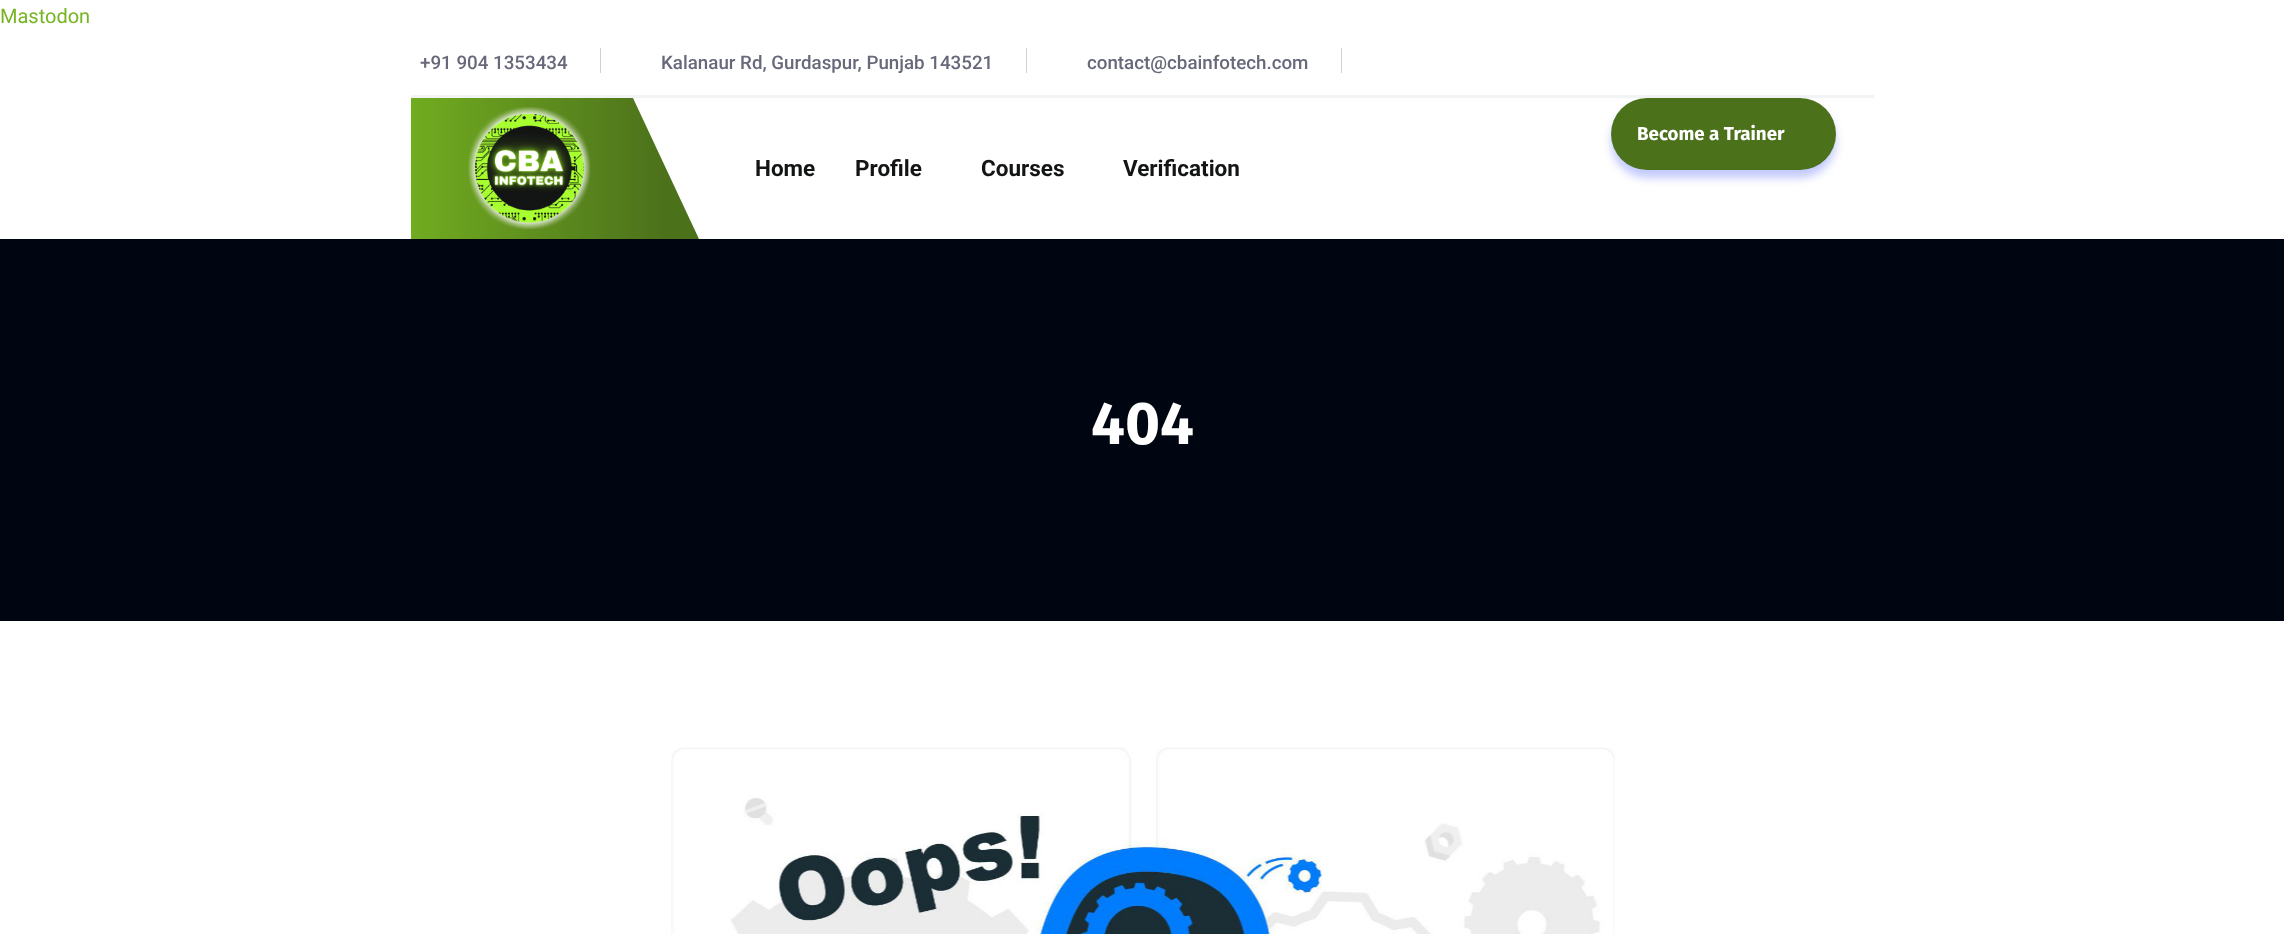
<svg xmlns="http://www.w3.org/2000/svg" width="2284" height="934">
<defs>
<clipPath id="clip1"><rect x="411" y="98" width="293" height="141"/></clipPath>
<linearGradient id="g1" gradientUnits="userSpaceOnUse" x1="374" y1="168" x2="666" y2="168"><stop offset="0" stop-color="#76b421"/><stop offset="1" stop-color="#4c711b"/></linearGradient>
</defs>
<rect width="100%" height="100%" fill="#fff"/>
<text x="0" y="23" style="font-family:Roboto;font-size:20px;fill:#76b421">Mastodon</text>
<text x="420" y="69" style="font-family:Roboto;font-size:18.75px;font-weight:500;fill:#67687a">+91 904 1353434</text>
<rect x="600" y="48" width="1" height="25" fill="#d2d2d2"/>
<text x="661" y="69" style="font-family:Roboto;font-size:18.75px;font-weight:500;fill:#67687a">Kalanaur Rd, Gurdaspur, Punjab 143521</text>
<rect x="1026" y="48" width="1" height="25" fill="#d2d2d2"/>
<text x="1087" y="69" style="font-family:Roboto;font-size:18.75px;font-weight:500;fill:#67687a">contact@cbainfotech.com</text>
<rect x="1341" y="48" width="1" height="25" fill="#d2d2d2"/>
<rect x="411" y="95" width="1463" height="3" fill="#f1f3f5"/>
<g clip-path="url(#clip1)">
<path d="M341 98h292l66 141h-292z" fill="url(#g1)"/>
</g>
<image x="468" y="107" width="123" height="123" href="media/1.png"/>
<rect x="1611" y="105" width="225" height="73" rx="36.5" fill="#3750f44d" filter="blur(4px)"/>
<rect x="1611" y="98" width="225" height="72" rx="36" fill="#4c711b"/>
<text x="1637" y="140" style="font-family:Fira Sans;font-size:18.75px;font-weight:bold;fill:#fff">Become a Trainer</text>
<text x="755" y="176" style="font-family:Roboto;font-size:22.5px;font-weight:bold;fill:#131414">Home</text>
<text x="855" y="176" style="font-family:Roboto;font-size:22.5px;font-weight:bold;fill:#131414">Profile</text>
<text x="981" y="176" style="font-family:Roboto;font-size:22.5px;font-weight:bold;fill:#131414">Courses</text>
<text x="1123" y="176" style="font-family:Roboto;font-size:22.5px;font-weight:bold;fill:#131414">Verification</text>
<rect y="239" width="2284" height="382" fill="#000611"/>
<text x="1091" y="444" style="font-family:Fira Sans;font-size:60px;font-weight:bold;fill:#fff">404</text>
<image x="671" y="747" width="944" height="187" href="media/2.png"/>
</svg>
